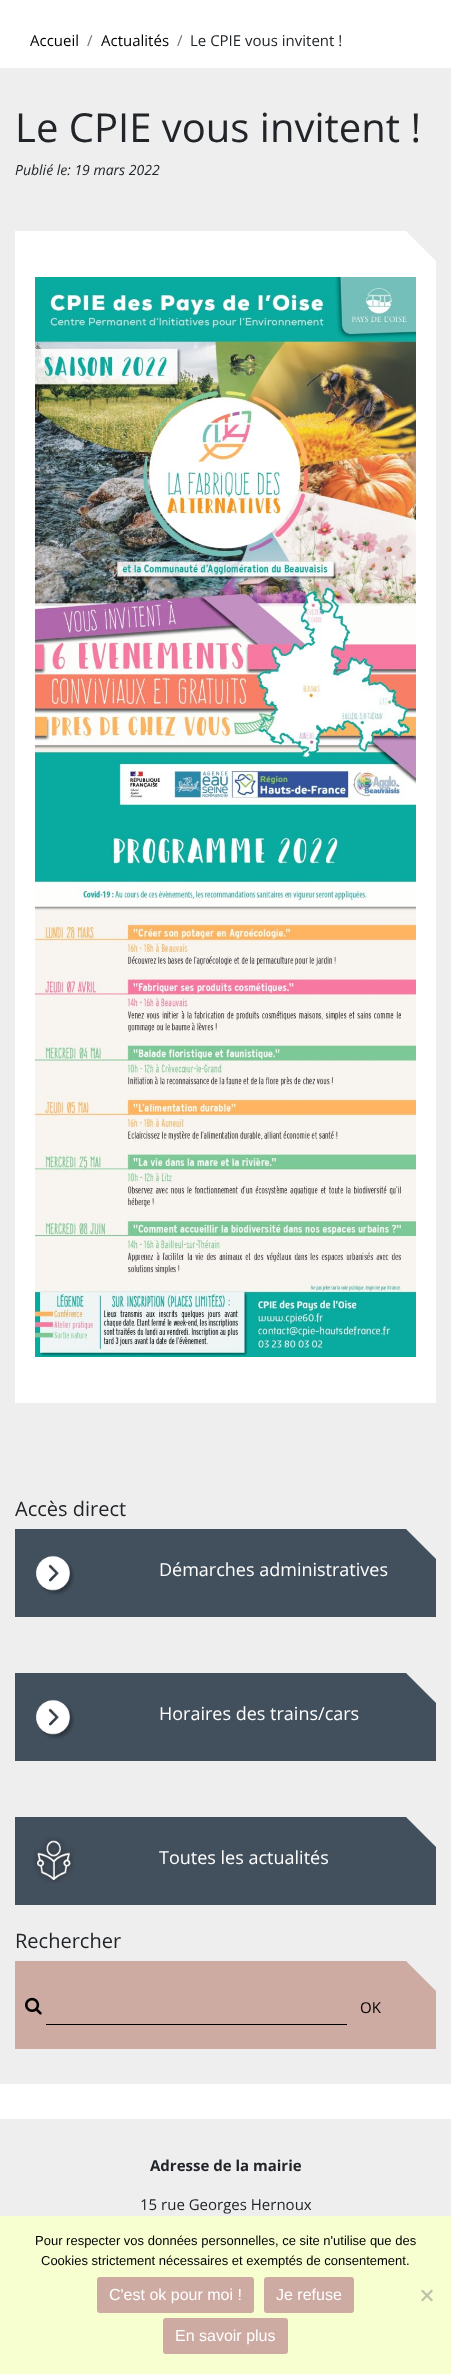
<svg xmlns="http://www.w3.org/2000/svg" width="451" height="2374">
<rect width="100%" height="100%" fill="#fff"/>
<text x="30" y="46" style="font-family:Open Sans;font-size:15px;fill:#000">Accueil</text>
<text x="87" y="46" style="font-family:Open Sans;font-size:15px;fill:#6c757d">/</text>
<text x="101" y="46" style="font-family:Open Sans;font-size:15px;fill:#000">Actualités</text>
<text x="177" y="46" style="font-family:Open Sans;font-size:15px;fill:#6c757d">/</text>
<text x="190" y="46" style="font-family:Open Sans;font-size:15px;fill:#212529">Le CPIE vous invitent !</text>
<rect y="68" width="451" height="2016" fill="#eee"/>
<text x="15" y="142" style="font-family:Open Sans;font-size:40px;fill:#212529">Le CPIE vous invitent !</text>
<text x="15" y="175" style="font-family:Open Sans;font-size:14px;font-style:italic;fill:#212529">Publié le: 19 mars 2022</text>
<rect x="15" y="231" width="421" height="1172" fill="#fff"/>
<path d="M436 231v30l-30-30z" fill="#eee"/>
<image x="35" y="277" width="381" height="540" href="media/1.png"/>
<image x="35" y="817" width="381" height="540" href="media/2.png"/>
<text x="15" y="1516" style="font-family:Open Sans;font-size:20px;fill:#212529">Accès direct</text>
<rect x="15" y="1529" width="421" height="88" fill="#424f5c"/>
<path d="M436 1529v30l-30-30z" fill="#eee"/>
<image x="36" y="1555" width="38" height="40" href="media/3.png"/>
<text x="159" y="1576" style="font-family:Open Sans;font-size:18px;fill:#fff">Démarches administratives</text>
<rect x="15" y="1673" width="421" height="88" fill="#424f5c"/>
<path d="M436 1673v30l-30-30z" fill="#eee"/>
<image x="36" y="1699" width="38" height="40" href="media/3.png"/>
<text x="159" y="1720" style="font-family:Open Sans;font-size:18px;fill:#fff">Horaires des trains/cars</text>
<rect x="15" y="1817" width="421" height="88" fill="#424f5c"/>
<path d="M436 1817v30l-30-30z" fill="#eee"/>
<image x="33" y="1837" width="41" height="46" href="media/4.png"/>
<text x="159" y="1864" style="font-family:Open Sans;font-size:18px;fill:#fff">Toutes les actualités</text>
<text x="15" y="1948" style="font-family:Open Sans;font-size:20px;fill:#212529">Rechercher</text>
<rect x="15" y="1961" width="421" height="88" fill="#cdaaa2"/>
<path d="M436 1961v30l-30-30z" fill="#eee"/>
<image x="25" y="1997" width="17" height="18" href="media/5.png"/>
<text x="360" y="2013" style="font-family:Open Sans;font-size:15px;fill:#000">OK</text>
<rect x="46" y="2024" width="301" height="1" fill="#000"/>
<rect y="2119" width="451" height="97" fill="#eee"/>
<text x="150" y="2171" style="font-family:Open Sans;font-size:15px;font-weight:bold;fill:#212529">Adresse de la mairie</text>
<text x="140" y="2210" style="font-family:Open Sans;font-size:15px;fill:#212529">15 rue Georges Hernoux</text>
<rect y="2216" width="451" height="158" fill="#f7ffd1"/>
<text x="35" y="2245" style="font-family:Liberation Sans;font-size:13px;fill:#000">Pour respecter vos données personnelles, ce site n'utilise que des</text>
<text x="41" y="2265" style="font-family:Liberation Sans;font-size:13px;fill:#000">Cookies strictement nécessaires et exemptés de consentement.</text>
<rect x="97" y="2277" width="157" height="36" rx="3" fill="#cdaaa2"/>
<text x="109" y="2300" style="font-family:Liberation Sans;font-size:16px;fill:#fff">C'est ok pour moi !</text>
<rect x="264" y="2277" width="90" height="36" rx="3" fill="#cdaaa2"/>
<text x="276" y="2300" style="font-family:Liberation Sans;font-size:16px;fill:#fff">Je refuse</text>
<rect x="163" y="2318" width="125" height="36" rx="3" fill="#cdaaa2"/>
<text x="175" y="2341" style="font-family:Liberation Sans;font-size:16px;fill:#fff">En savoir plus</text>
<path d="M431.5 2289.5l1.5 1.5l-10.5 10.5l-1.5-1.5z" fill="#bcc0a9"/>
<path d="M421 2291l1.5-1.5l10.5 10.5l-1.5 1.5z" fill="#bcc0a9"/>
</svg>
